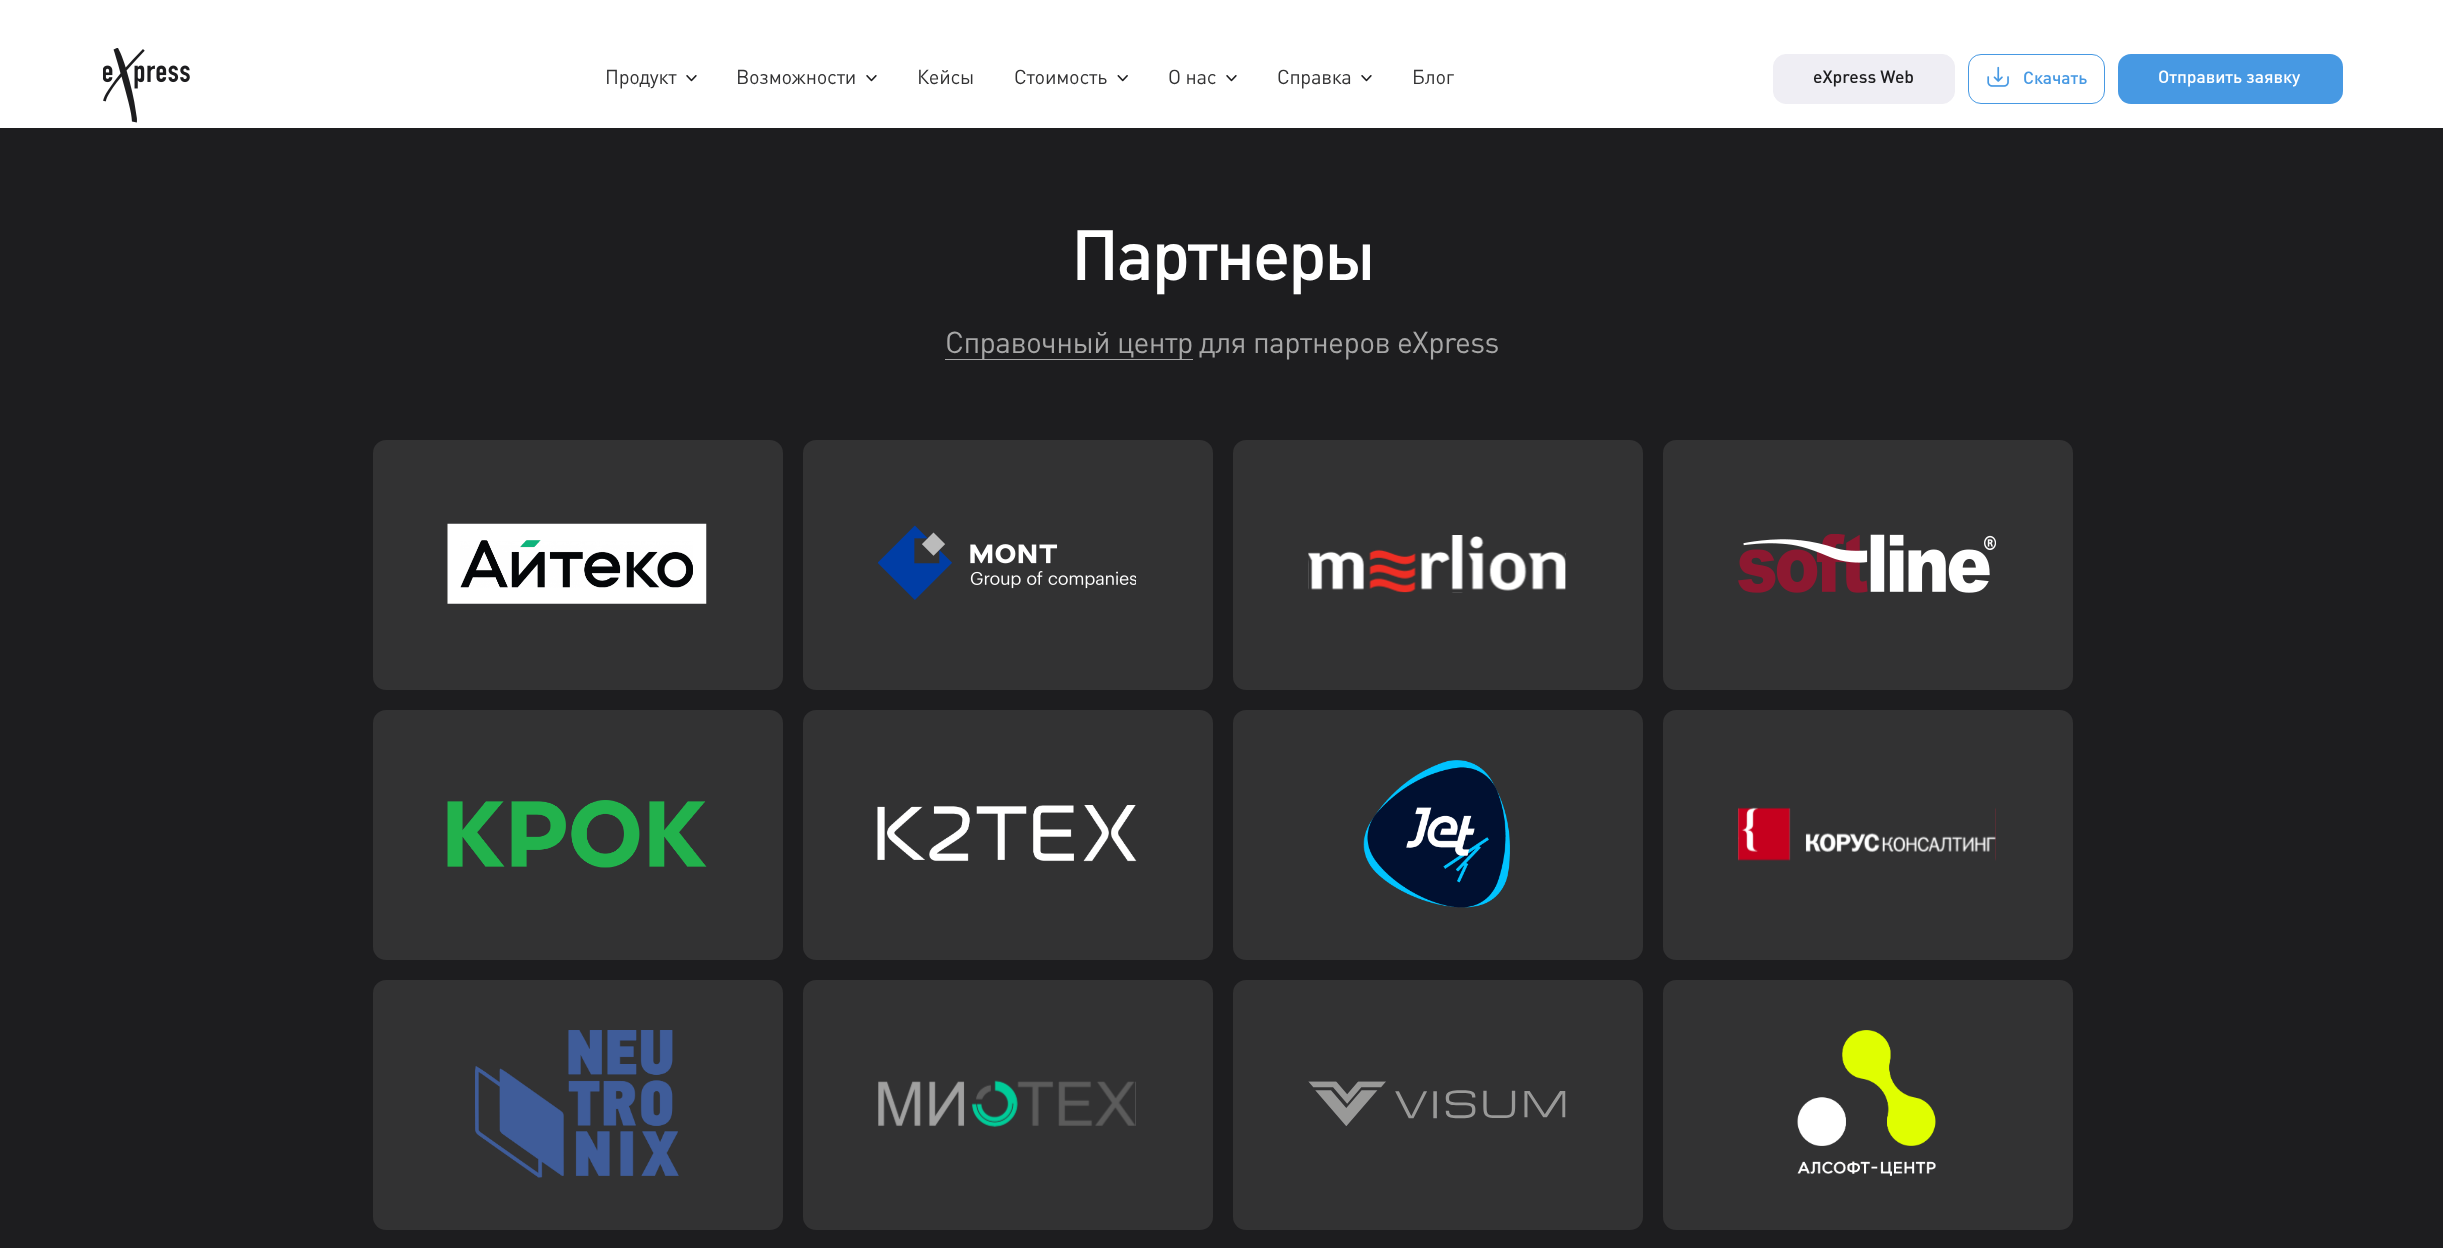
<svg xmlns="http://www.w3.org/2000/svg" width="2443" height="1248">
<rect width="100%" height="100%" fill="#fff"/>
<image x="103" y="48" width="87" height="75" href="media/1.png"/>
<text x="605" y="84" style="font-family:DIN;font-size:20px;letter-spacing:-0.25px;fill:#323233">Продукт</text>
<image x="686" y="75" width="11" height="7" href="media/2.png"/>
<text x="736" y="84" style="font-family:DIN;font-size:20px;letter-spacing:-0.25px;fill:#323233">Возможности</text>
<image x="866" y="75" width="11" height="7" href="media/2.png"/>
<text x="917" y="84" style="font-family:DIN;font-size:20px;letter-spacing:-0.25px;fill:#323233">Кейсы</text>
<text x="1014" y="84" style="font-family:DIN;font-size:20px;letter-spacing:-0.25px;fill:#323233">Стоимость</text>
<image x="1117" y="75" width="11" height="7" href="media/3.png"/>
<text x="1168" y="84" style="font-family:DIN;font-size:20px;letter-spacing:-0.25px;fill:#323233">О нас</text>
<image x="1226" y="75" width="11" height="7" href="media/2.png"/>
<text x="1277" y="84" style="font-family:DIN;font-size:20px;letter-spacing:-0.25px;fill:#323233">Справка</text>
<image x="1361" y="75" width="11" height="7" href="media/2.png"/>
<text x="1412" y="84" style="font-family:DIN;font-size:20px;letter-spacing:-0.25px;fill:#323233">Блог</text>
<rect x="1773.5" y="54.5" width="181" height="49" rx="12.5" fill="#efeef4" stroke="#efeef4"/>
<text x="1813" y="83" style="font-family:DIN;font-size:17.5px;font-weight:500;fill:#1d1d1f">eXpress Web</text>
<rect x="1968.5" y="54.5" width="136" height="49" rx="12.5" fill="none" stroke="#4799e3"/>
<image x="1987" y="66" width="22" height="21" href="media/4.png"/>
<text x="2023" y="84" style="font-family:DIN;font-size:17.5px;font-weight:500;fill:#4799e3">Скачать</text>
<rect x="2118" y="54" width="225" height="50" rx="13" fill="#4799e3"/>
<text x="2158" y="83" style="font-family:DIN;font-size:17.5px;font-weight:500;fill:#fff">Отправить заявку</text>
<rect y="128" width="2443" height="1120" fill="#1d1d1f"/>
<text x="1071" y="280" style="font-family:DIN;font-size:70px;font-weight:500;letter-spacing:-2.5px;fill:#fff">Партнеры</text>
<rect x="945" y="359" width="248" height="1" fill="#a7a7a7"/>
<text x="945" y="353" style="font-family:DIN;font-size:30px;letter-spacing:-0.6px;fill:#a7a7a7">Справочный центр</text>
<text x="1199" y="353" style="font-family:DIN;font-size:30px;letter-spacing:-0.6px;fill:#a7a7a7">для партнеров eXpress</text>
<rect x="373" y="440" width="410" height="250" rx="13" fill="#323233"/>
<image x="447" y="523" width="260" height="81" href="media/5.png"/>
<rect x="803" y="440" width="410" height="250" rx="13" fill="#323233"/>
<image x="878" y="525" width="258" height="75" href="media/6.png"/>
<rect x="1233" y="440" width="410" height="250" rx="13" fill="#323233"/>
<image x="1308" y="535" width="258" height="58" href="media/7.png"/>
<rect x="1663" y="440" width="410" height="250" rx="13" fill="#323233"/>
<image x="1738" y="534" width="258" height="59" href="media/8.png"/>
<rect x="373" y="710" width="410" height="250" rx="13" fill="#323233"/>
<image x="447" y="800" width="260" height="68" href="media/9.png"/>
<rect x="803" y="710" width="410" height="250" rx="13" fill="#323233"/>
<image x="877" y="805" width="260" height="57" href="media/10.png"/>
<rect x="1233" y="710" width="410" height="250" rx="13" fill="#323233"/>
<image x="1363" y="760" width="147" height="148" href="media/11.png"/>
<rect x="1663" y="710" width="410" height="250" rx="13" fill="#323233"/>
<image x="1738" y="807" width="258" height="54" href="media/12.png"/>
<rect x="373" y="980" width="410" height="250" rx="13" fill="#323233"/>
<image x="475" y="1030" width="204" height="148" href="media/13.png"/>
<rect x="803" y="980" width="410" height="250" rx="13" fill="#323233"/>
<image x="878" y="1080" width="258" height="47" href="media/14.png"/>
<rect x="1233" y="980" width="410" height="250" rx="13" fill="#323233"/>
<image x="1308" y="1081" width="258" height="45" href="media/15.png"/>
<rect x="1663" y="980" width="410" height="250" rx="13" fill="#323233"/>
<image x="1797" y="1030" width="139" height="146" href="media/16.png"/>
</svg>
